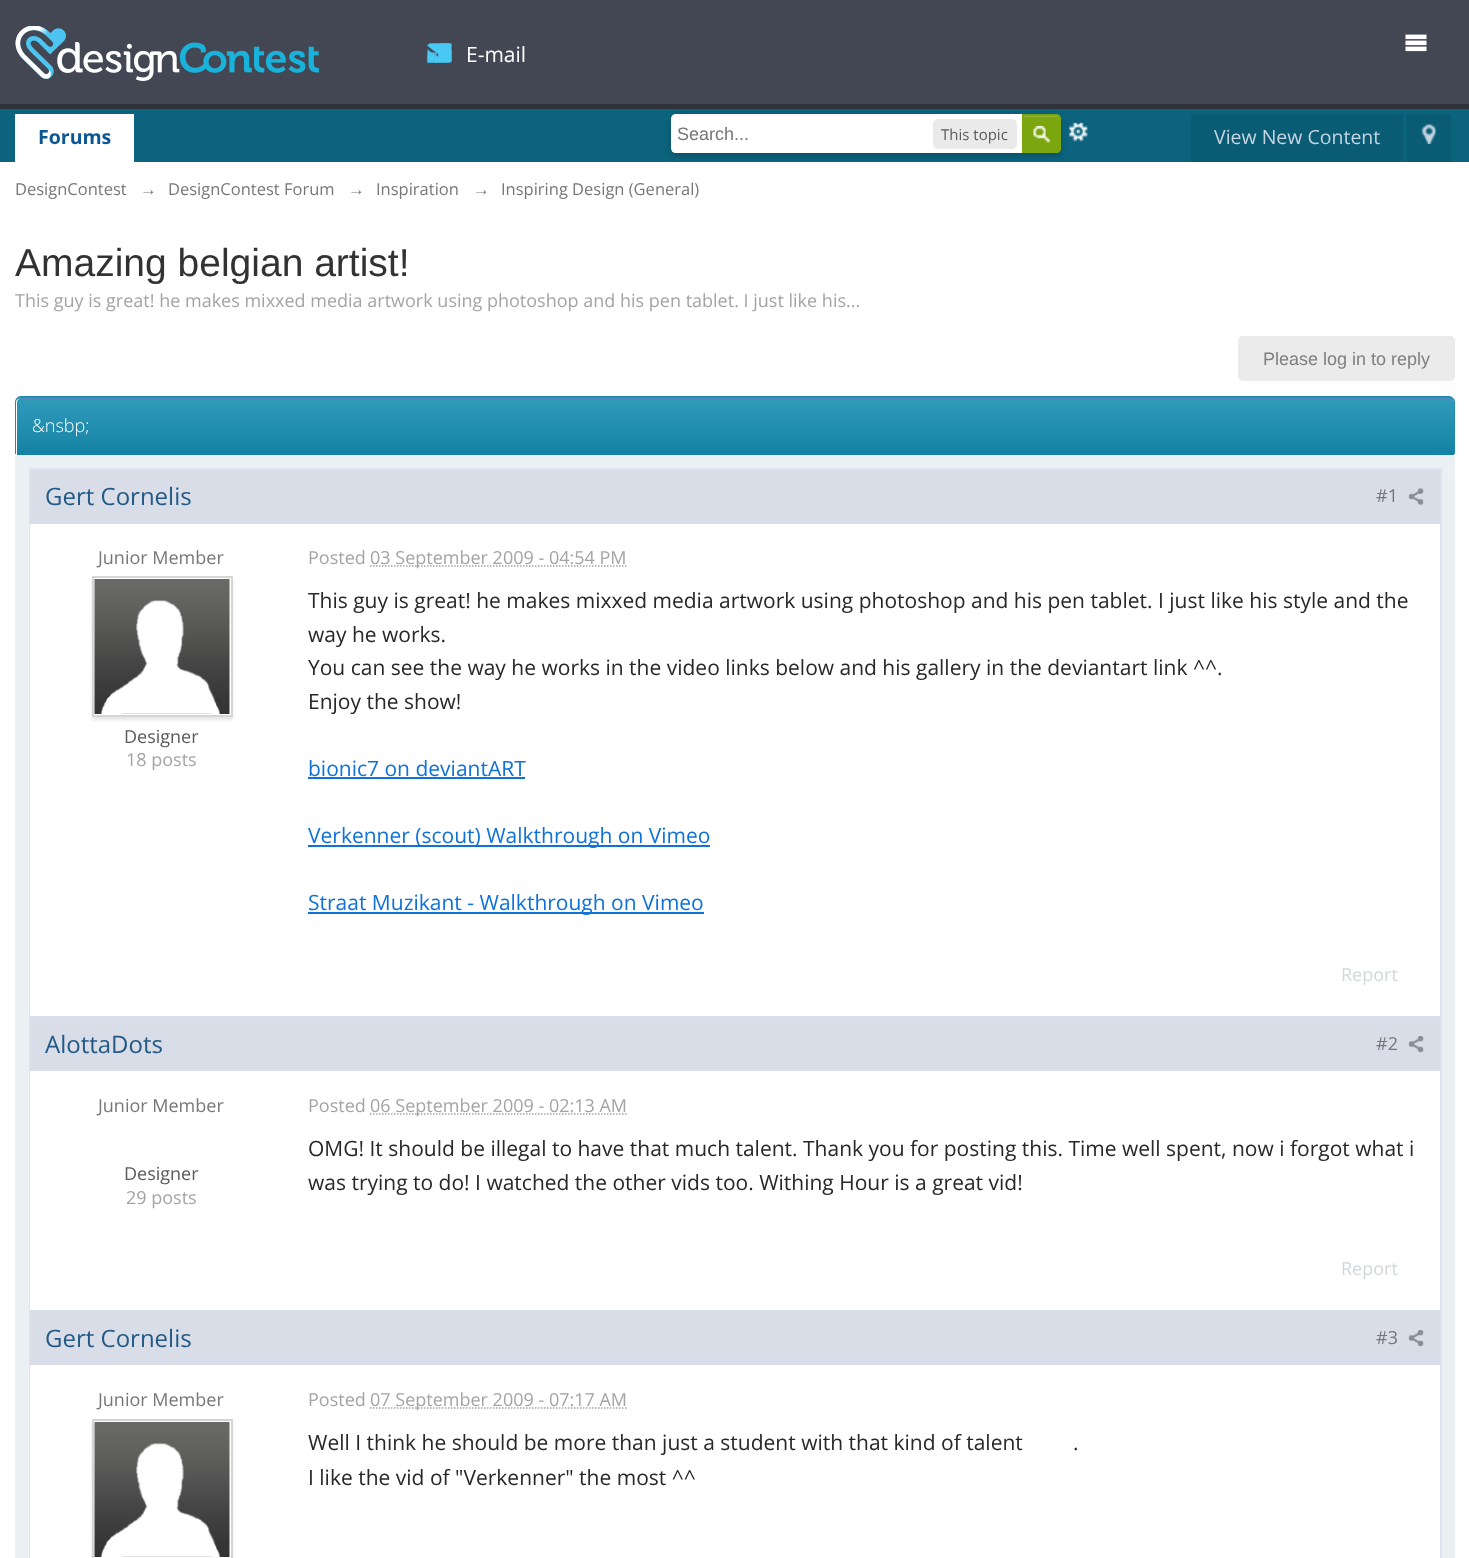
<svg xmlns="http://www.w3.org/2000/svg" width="1469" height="1558">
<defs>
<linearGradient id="g1" gradientUnits="userSpaceOnUse" x1="735" y1="397" x2="735" y2="455"><stop offset="0" stop-color="#319bbc"/><stop offset="1" stop-color="#1482a4"/></linearGradient>
</defs>
<rect width="100%" height="100%" fill="#0c637d"/>
<rect width="1469" height="104" fill="#434753"/>
<image x="1069" y="122" width="19" height="20" href="media/6.png"/>
<rect y="162" width="1469" height="1396" fill="#fff"/>
<rect x="671" y="117" width="390" height="39" rx="6" fill="#00000033" filter="blur(3px)"/>
<rect y="104" width="1469" height="5" fill="#2f323b"/>
<image x="15" y="26" width="304" height="55" href="media/1.png"/>
<image x="1405" y="34" width="22" height="18" href="media/2.png"/>
<image x="427" y="43" width="25" height="20" href="media/3.png"/>
<image x="427" y="43" width="25" height="20" href="media/4.png"/>
<text x="466" y="62" style="font-family:Open Sans;font-size:21px;fill:#fff">E-mail</text>
<rect x="15" y="114" width="119" height="48" fill="#fff"/>
<text x="38" y="144" style="font-family:Open Sans;font-size:19.5px;font-weight:bold;fill:#0b5794">Forums</text>
<path d="M676 114h379c3.5 0 6 2.5 6 6v27c0 3.5-2.5 6-6 6h-379c-3 0-5-2-5-5v-29c0-3 2-5 5-5z" fill="#fff"/>
<text x="677" y="140" style="font-family:Liberation Sans;font-size:18px;fill:#777">Search...</text>
<rect x="933" y="119" width="84" height="30" rx="5" fill="#eaeaea"/>
<text x="941" y="140" style="font-family:Open Sans;font-size:15px;fill:#5a5a5a">This topic</text>
<path d="M1022 114h34c3 0 5 2 5 5v29c0 3-2 5-5 5h-34z" fill="#7ba60d"/>
<image x="1033" y="126" width="17" height="17" href="media/5.png"/>
<path d="M1023 117h33c2 0 3 1 3 3v-1c0-1.5-1.5-3-3-3h-33z" fill="#95b83d"/>
<path d="M1023 115h33c2 0 4 2 4 4v29c0 2-2 4-4 4h-33z" fill="none" stroke="#7ba60d" stroke-width="2"/>
<rect x="1191" y="114" width="212" height="48" fill="#0a5c75"/>
<text x="1214" y="144" style="font-family:Open Sans;font-size:19.5px;fill:#c5d5e2">View New Content</text>
<rect x="1407" y="114" width="44" height="48" fill="#0a5c75"/>
<image x="1421" y="124" width="15" height="20" href="media/7.png"/>
<text x="15" y="195" style="font-family:Open Sans;font-size:16.5px;fill:#777">DesignContest</text>
<text x="140" y="195" style="font-family:Liberation Sans;font-size:16.5px;fill:#777">→</text>
<text x="168" y="195" style="font-family:Open Sans;font-size:16.5px;fill:#777">DesignContest Forum</text>
<text x="348" y="195" style="font-family:Liberation Sans;font-size:16.5px;fill:#777">→</text>
<text x="376" y="195" style="font-family:Open Sans;font-size:16.5px;fill:#777">Inspiration</text>
<text x="473" y="195" style="font-family:Liberation Sans;font-size:16.5px;fill:#777">→</text>
<text x="501" y="195" style="font-family:Open Sans;font-size:16.5px;fill:#777">Inspiring Design (General)</text>
<text x="15" y="276" style="font-family:Liberation Sans;font-size:39px;fill:#323232">Amazing belgian artist!</text>
<text x="15" y="307" style="font-family:Open Sans;font-size:18px;fill:#a4a4a4">This guy is great! he makes mixxed media artwork using photoshop and his pen tablet. I just like his...</text>
<rect x="1238" y="336" width="217" height="45" rx="5" fill="#ebebeb"/>
<text x="1263" y="365" style="font-family:Liberation Sans;font-size:18px;fill:#7f7f7f">Please log in to reply</text>
<path d="M22 398h1427c3 0 5 2 5 5v52h-1437v-52c0-3 2-5 5-5z" fill="url(#g1)"/>
<path d="M21 399h1428c2 0 5 2 5 5v-1c0-3-2-5-5-5h-1427c-2 0-3 1-4 2z" fill="#528cbc"/>
<path d="M21 396h1428c3 0 6 3 6 6v52h-1440v-52c0-3 3-6 6-6zm0 2h1428c2 0 5 2 5 4v52h-1438v-52c0-2 3-4 5-4z" fill="#1d8caf" fill-rule="evenodd"/>
<text x="32" y="432" style="font-family:Open Sans;font-size:18px;font-weight:300;fill:#fff">&amp;nsbp;</text>
<rect x="15" y="455" width="1440" height="1103" fill="#ebf0f3"/>
<rect x="30" y="469" width="1411" height="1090" fill="none" stroke="#dbe4ef" stroke-width="2"/>
<rect x="30" y="524" width="1410" height="492" fill="#fff"/>
<rect x="30" y="1016" width="1410" height="1" fill="#d6e2eb"/>
<rect x="30" y="470" width="1410" height="54" fill="#d8dde8"/>
<text x="45" y="505" style="font-family:Open Sans;font-size:24px;fill:#225985">Gert Cornelis</text>
<text x="1376" y="502" style="font-family:Open Sans;font-size:18px;fill:#777">#1</text>
<image x="1408" y="488" width="16" height="17" href="media/8.png"/>
<text x="98" y="564" style="font-family:Open Sans;font-size:18px;fill:#777">Junior Member</text>
<rect x="92" y="579" width="141" height="141" fill="#0000001a" filter="blur(1.5px)"/>
<rect x="93" y="577" width="139" height="139" fill="#fff" stroke="#d5d5d5" stroke-width="2"/>
<image x="94" y="579" width="136" height="135" href="media/9.png"/>
<text x="124" y="743" style="font-family:Open Sans;font-size:18px;fill:#5a5a5a">Designer</text>
<text x="126" y="766" style="font-family:Open Sans;font-size:18px;fill:#a4a4a4">18 posts</text>
<text x="308" y="564" style="font-family:Open Sans;font-size:18px;fill:#a4a4a4">Posted</text>
<path d="M370 566h256.5" fill="none" stroke="#a4a4a4" stroke-width="1.5" stroke-dasharray="1.5 1.5"/>
<text x="370" y="564" style="font-family:Open Sans;font-size:18px;fill:#a4a4a4">03 September 2009 - 04:54 PM</text>
<text x="308" y="608" style="font-family:Open Sans;font-size:21px;fill:#282828">This guy is great! he makes mixxed media artwork using photoshop and his pen tablet. I just like his style and the</text>
<text x="308" y="642" style="font-family:Open Sans;font-size:21px;fill:#282828">way he works.</text>
<text x="308" y="675" style="font-family:Open Sans;font-size:21px;fill:#282828">You can see the way he works in the video links below and his gallery in the deviantart link ^^.</text>
<text x="308" y="709" style="font-family:Open Sans;font-size:21px;fill:#282828">Enjoy the show!</text>
<text x="308" y="776" style="font-family:Open Sans;font-size:21px;fill:#0f72da">bionic7 on deviantART</text>
<rect x="308" y="777" width="217" height="2" fill="#0f72da"/>
<rect x="308" y="845" width="402" height="2" fill="#0f72da"/>
<text x="308" y="843" style="font-family:Open Sans;font-size:21px;fill:#0f72da">Verkenner (scout) Walkthrough on Vimeo</text>
<rect x="308" y="912" width="396" height="2" fill="#0f72da"/>
<text x="308" y="910" style="font-family:Open Sans;font-size:21px;fill:#0f72da">Straat Muzikant - Walkthrough on Vimeo</text>
<text x="1341" y="981" style="font-family:Open Sans;font-size:18px;fill:#d2d7dc">Report</text>
<rect x="30" y="1071" width="1410" height="239" fill="#fff"/>
<rect x="30" y="1310" width="1410" height="1" fill="#d6e2eb"/>
<rect x="30" y="1017" width="1410" height="54" fill="#d8dde8"/>
<text x="45" y="1053" style="font-family:Open Sans;font-size:24px;fill:#225985">AlottaDots</text>
<text x="1376" y="1050" style="font-family:Open Sans;font-size:18px;fill:#777">#2</text>
<image x="1408" y="1036" width="16" height="17" href="media/10.png"/>
<text x="98" y="1112" style="font-family:Open Sans;font-size:18px;fill:#777">Junior Member</text>
<text x="124" y="1180" style="font-family:Open Sans;font-size:18px;fill:#5a5a5a">Designer</text>
<text x="126" y="1204" style="font-family:Open Sans;font-size:18px;fill:#a4a4a4">29 posts</text>
<text x="308" y="1112" style="font-family:Open Sans;font-size:18px;fill:#a4a4a4">Posted</text>
<path d="M370 1114h257" fill="none" stroke="#a4a4a4" stroke-width="1.5" stroke-dasharray="1.5 1.5"/>
<text x="370" y="1112" style="font-family:Open Sans;font-size:18px;fill:#a4a4a4">06 September 2009 - 02:13 AM</text>
<text x="308" y="1156" style="font-family:Open Sans;font-size:21px;fill:#282828">OMG! It should be illegal to have that much talent. Thank you for posting this. Time well spent, now i forgot what i</text>
<text x="308" y="1190" style="font-family:Open Sans;font-size:21px;fill:#282828">was trying to do! I watched the other vids too. Withing Hour is a great vid!</text>
<text x="1341" y="1275" style="font-family:Open Sans;font-size:18px;fill:#d2d7dc">Report</text>
<rect x="30" y="1365" width="1410" height="193" fill="#fff"/>
<rect x="30" y="1311" width="1410" height="54" fill="#d8dde8"/>
<text x="45" y="1347" style="font-family:Open Sans;font-size:24px;fill:#225985">Gert Cornelis</text>
<text x="1376" y="1344" style="font-family:Open Sans;font-size:18px;fill:#777">#3</text>
<image x="1408" y="1330" width="16" height="17" href="media/11.png"/>
<text x="98" y="1406" style="font-family:Open Sans;font-size:18px;fill:#777">Junior Member</text>
<rect x="92" y="1422" width="141" height="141" fill="#0000001a" filter="blur(1.5px)"/>
<rect x="93" y="1420" width="139" height="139" fill="#fff" stroke="#d5d5d5" stroke-width="2"/>
<image x="94" y="1422" width="136" height="135" href="media/12.png"/>
<text x="308" y="1406" style="font-family:Open Sans;font-size:18px;fill:#a4a4a4">Posted</text>
<path d="M370 1408h257" fill="none" stroke="#a4a4a4" stroke-width="1.5" stroke-dasharray="1.5 1.5"/>
<text x="370" y="1406" style="font-family:Open Sans;font-size:18px;fill:#a4a4a4">07 September 2009 - 07:17 AM</text>
<text x="308" y="1450" style="font-family:Open Sans;font-size:21px;fill:#282828">Well I think he should be more than just a student with that kind of talent</text>
<text x="1073" y="1450" style="font-family:Open Sans;font-size:21px;fill:#282828">.</text>
<text x="308" y="1485" style="font-family:Open Sans;font-size:21px;fill:#282828">I like the vid of "Verkenner" the most ^^</text>
</svg>
